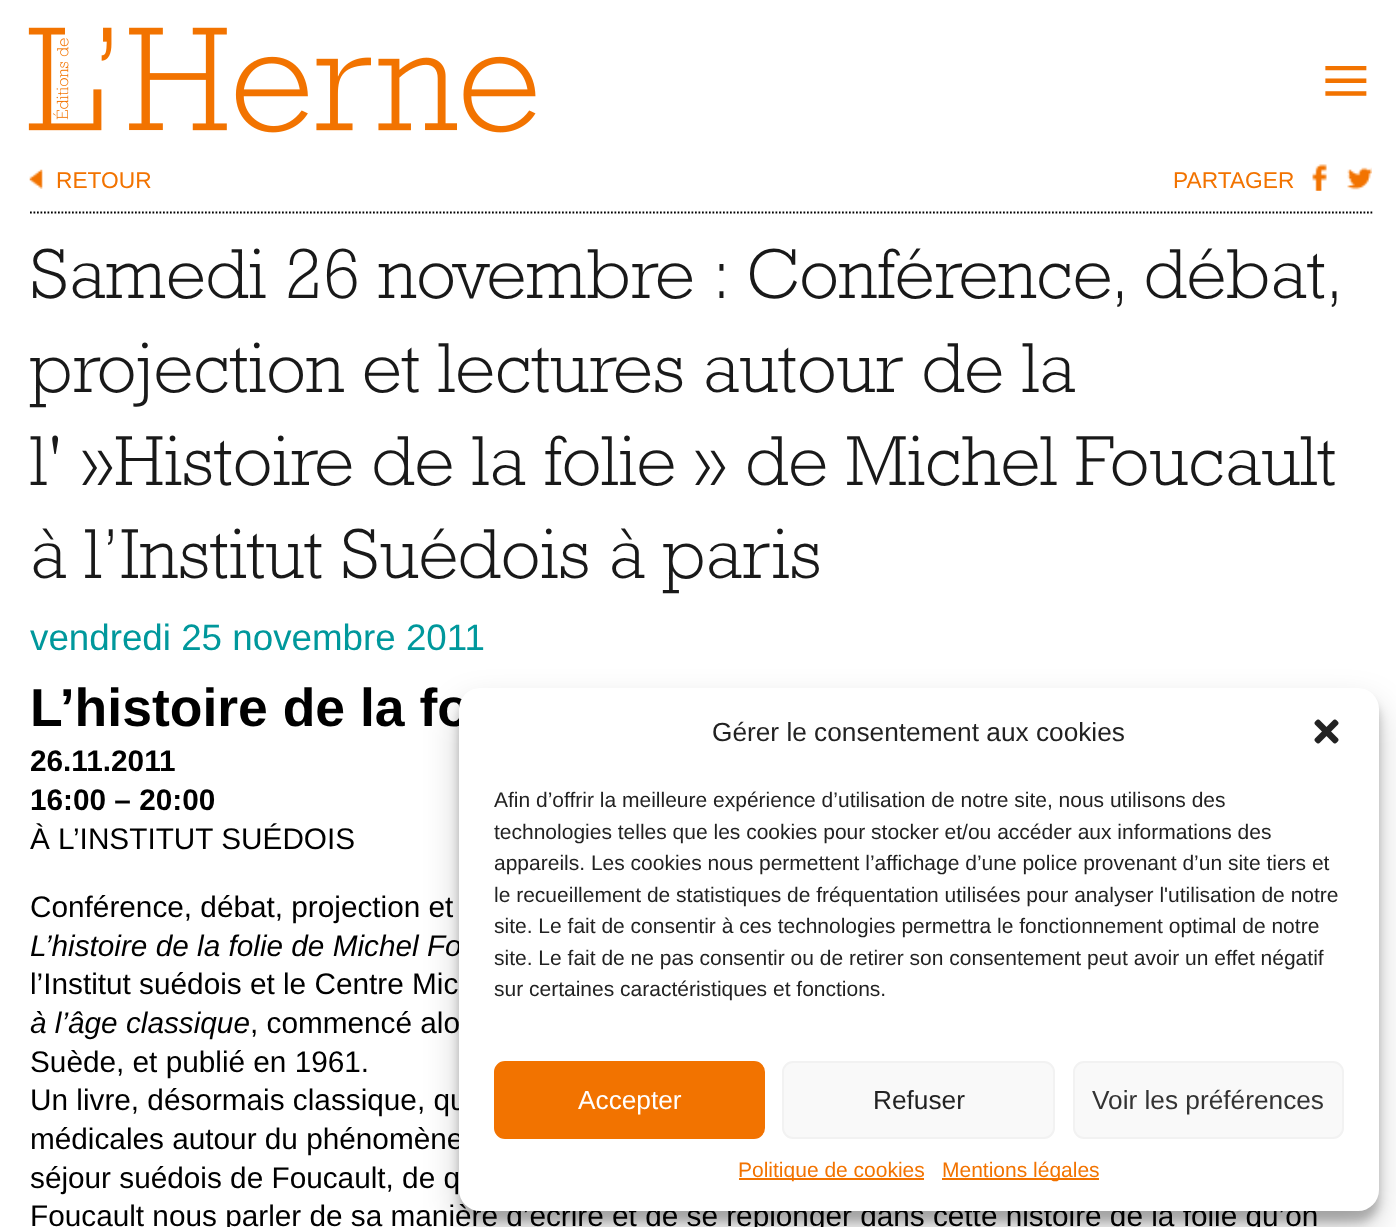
<svg xmlns="http://www.w3.org/2000/svg" width="1396" height="1227">
<rect width="100%" height="100%" fill="#fff"/>
<image x="28" y="27" width="508" height="106" href="media/1.png"/>
<text x="1321" y="110" style="font-family:Liberation Serif;font-size:88px;fill:#f27300">≡</text>
<image x="29" y="169" width="14" height="20" href="media/2.png"/>
<text x="56" y="188" style="font-family:Liberation Sans;font-size:22.75px;fill:#f27300">RETOUR</text>
<text x="1173" y="188" style="font-family:Liberation Sans;font-size:22.75px;fill:#f27300">PARTAGER</text>
<image x="1312" y="164" width="15" height="27" href="media/3.png"/>
<image x="1347" y="167" width="25" height="23" href="media/4.png"/>
<path d="M30 212.5h1344" fill="none" stroke="#000" stroke-width="1.8" stroke-dasharray="1.75 1.75"/>
<text x="30" y="298" style="font-family:Rockwell;font-size:71.75px;font-weight:300;fill:#191919">Samedi 26 novembre : Conférence, débat,</text>
<text x="30" y="392" style="font-family:Rockwell;font-size:71.75px;font-weight:300;fill:#191919">projection et lectures autour de la</text>
<text x="30" y="485" style="font-family:Rockwell;font-size:71.75px;font-weight:300;fill:#191919">l' »Histoire de la folie » de Michel Foucault</text>
<text x="30" y="578" style="font-family:Rockwell;font-size:71.75px;font-weight:300;fill:#191919">à l’Institut Suédois à paris</text>
<text x="30" y="650" style="font-family:Liberation Sans;font-size:36.75px;fill:#00989c">vendredi 25 novembre 2011</text>
<text x="30" y="726" style="font-family:Liberation Sans;font-size:53.5px;font-weight:bold;fill:#000">L’histoire de la fo</text>
<text x="30" y="771" style="font-family:Liberation Sans;font-size:29.75px;font-weight:bold;fill:#000">26.11.2011</text>
<text x="30" y="810" style="font-family:Liberation Sans;font-size:29.75px;font-weight:bold;fill:#000">16:00 – 20:00</text>
<text x="30" y="849" style="font-family:Liberation Sans;font-size:29.75px;fill:#000">À L’INSTITUT SUÉDOIS</text>
<text x="30" y="917" style="font-family:Liberation Sans;font-size:29.75px;fill:#000">Conférence, débat, projection et</text>
<text x="30" y="956" style="font-family:Liberation Sans;font-size:29.75px;font-style:italic;fill:#000">L’histoire de la folie de Michel Fo</text>
<text x="30" y="994" style="font-family:Liberation Sans;font-size:29.75px;fill:#000">l’Institut suédois et le Centre Mic</text>
<text x="30" y="1033" style="font-family:Liberation Sans;font-size:29.75px;font-style:italic;fill:#000">à l’âge classique</text>
<text x="250" y="1033" style="font-family:Liberation Sans;font-size:29.75px;fill:#000">, commencé alo</text>
<text x="30" y="1072" style="font-family:Liberation Sans;font-size:29.75px;fill:#000">Suède, et publié en 1961.</text>
<text x="30" y="1110" style="font-family:Liberation Sans;font-size:29.75px;fill:#000">Un livre, désormais classique, qu</text>
<text x="30" y="1149" style="font-family:Liberation Sans;font-size:29.75px;fill:#000">médicales autour du phénomène</text>
<text x="30" y="1188" style="font-family:Liberation Sans;font-size:29.75px;fill:#000">séjour suédois de Foucault, de q</text>
<text x="30" y="1226" style="font-family:Liberation Sans;font-size:29.75px;fill:#000">Foucault nous parler de sa manière d’écrire et de se replonger dans cette histoire de la folie qu’on</text>
<rect x="459" y="698" width="920" height="524" rx="21" fill="#0000003b" filter="blur(5px)"/>
<rect x="459" y="705" width="920" height="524" rx="21" fill="#00000030" filter="blur(17.5px)"/>
<rect x="459" y="688" width="920" height="523" rx="21" fill="#fff"/>
<text x="712" y="741" style="font-family:Liberation Sans;font-size:26.25px;fill:#222">Gérer le consentement aux cookies</text>
<image x="1314" y="719" width="25" height="25" href="media/5.png"/>
<text x="494" y="807" style="font-family:Liberation Sans;font-size:21px;fill:#222">Afin d’offrir la meilleure expérience d’utilisation de notre site, nous utilisons des</text>
<text x="494" y="839" style="font-family:Liberation Sans;font-size:21px;fill:#222">technologies telles que les cookies pour stocker et/ou accéder aux informations des</text>
<text x="494" y="870" style="font-family:Liberation Sans;font-size:21px;fill:#222">appareils. Les cookies nous permettent l’affichage d’une police provenant d’un site tiers et</text>
<text x="494" y="902" style="font-family:Liberation Sans;font-size:21px;fill:#222">le recueillement de statistiques de fréquentation utilisées pour analyser l'utilisation de notre</text>
<text x="494" y="933" style="font-family:Liberation Sans;font-size:21px;fill:#222">site. Le fait de consentir à ces technologies permettra le fonctionnement optimal de notre</text>
<text x="494" y="965" style="font-family:Liberation Sans;font-size:21px;fill:#222">site. Le fait de ne pas consentir ou de retirer son consentement peut avoir un effet négatif</text>
<text x="494" y="996" style="font-family:Liberation Sans;font-size:21px;fill:#222">sur certaines caractéristiques et fonctions.</text>
<rect x="495" y="1062" width="269" height="76" rx="10" fill="#f27300" stroke="#f27300" stroke-width="2"/>
<text x="578" y="1109" style="font-family:Liberation Sans;font-size:26.25px;fill:#fff">Accepter</text>
<rect x="783" y="1062" width="271" height="76" rx="10" fill="#f9f9f9" stroke="#f2f2f2" stroke-width="2"/>
<text x="873" y="1109" style="font-family:Liberation Sans;font-size:26.25px;fill:#222">Refuser</text>
<rect x="1074" y="1062" width="269" height="76" rx="10" fill="#f9f9f9" stroke="#f2f2f2" stroke-width="2"/>
<text x="1092" y="1109" style="font-family:Liberation Sans;font-size:26.25px;fill:#333">Voir les préférences</text>
<rect x="739" y="1178" width="185" height="2" fill="#f27300"/>
<text x="738" y="1177" style="font-family:Liberation Sans;font-size:21px;fill:#f27300">Politique de cookies</text>
<rect x="942" y="1178" width="157" height="2" fill="#f27300"/>
<text x="942" y="1177" style="font-family:Liberation Sans;font-size:21px;fill:#f27300">Mentions légales</text>
</svg>
